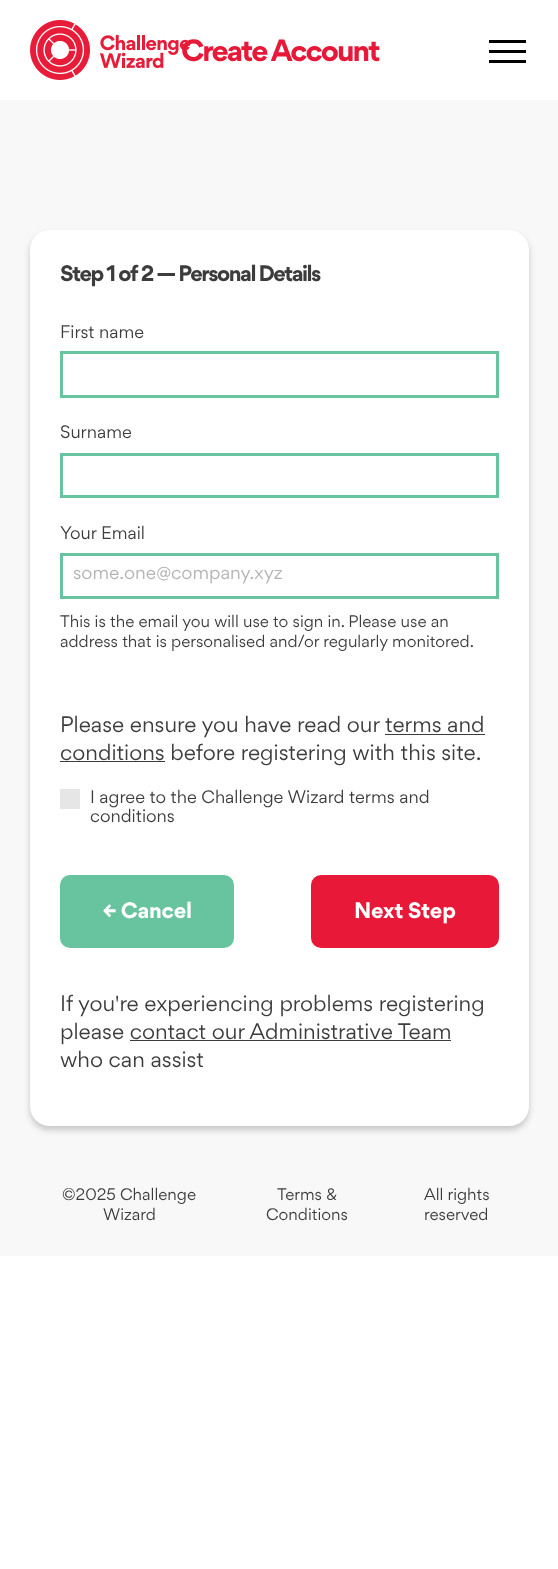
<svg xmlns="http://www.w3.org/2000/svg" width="558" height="1569">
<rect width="100%" height="100%" fill="#fff"/>
<text x="181" y="61" style="font-family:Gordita;font-size:27.5px;font-weight:bold;letter-spacing:-2px;fill:#e81838">Create Account</text>
<image x="30" y="20" width="160" height="60" href="media/1.png"/>
<rect x="489" y="40" width="37" height="3" fill="#000"/>
<rect x="489" y="50" width="37" height="3" fill="#000"/>
<rect x="489" y="60" width="37" height="3" fill="#000"/>
<rect y="100" width="558" height="1156" fill="#f8f8f9"/>
<rect x="30" y="234" width="499" height="896" rx="20" fill="#00000033" filter="blur(3px)"/>
<rect x="30" y="230" width="499" height="896" rx="20" fill="#fff"/>
<text x="60" y="281" style="font-family:Gordita;font-size:20px;font-weight:bold;letter-spacing:-1.5px;fill:#3c3c3c">Step 1 of 2 — Personal Details</text>
<text x="60" y="338" style="font-family:Gordita;font-size:16.2px;fill:#3c3c3c">First name</text>
<rect x="61.5" y="352.5" width="436" height="44" fill="none" stroke="#68c39f" stroke-width="3"/>
<text x="60" y="438" style="font-family:Gordita;font-size:16.2px;fill:#3c3c3c">Surname</text>
<rect x="61.5" y="454.5" width="436" height="42" fill="none" stroke="#68c39f" stroke-width="3"/>
<text x="60" y="539" style="font-family:Gordita;font-size:16.2px;fill:#3c3c3c">Your Email</text>
<rect x="61.5" y="554.5" width="436" height="43" fill="none" stroke="#68c39f" stroke-width="3"/>
<text x="73" y="579" style="font-family:Gordita;font-size:17px;fill:#b3b3b3">some.one@company.xyz</text>
<text x="60" y="627" style="font-family:Gordita;font-size:15px;fill:#3c3c3c">This is the email you will use to sign in. Please use an</text>
<text x="60" y="647" style="font-family:Gordita;font-size:15px;fill:#3c3c3c">address that is personalised and/or regularly monitored.</text>
<text x="60" y="732" style="font-family:Gordita;font-size:20px;fill:#3c3c3c">Please ensure you have read our terms and</text>
<rect x="60" y="761" width="105" height="1" fill="#3c3c3c"/>
<text x="60" y="760" style="font-family:Gordita;font-size:20px;fill:#3c3c3c">conditions before registering with this site.</text>
<rect x="385" y="734" width="100" height="1" fill="#3c3c3c"/>
<rect x="60" y="789" width="20" height="20" fill="#e6e6e6"/>
<text x="90" y="803" style="font-family:Gordita;font-size:16.2px;fill:#3c3c3c">I agree to the Challenge Wizard terms and</text>
<text x="90" y="822" style="font-family:Gordita;font-size:16.2px;fill:#3c3c3c">conditions</text>
<rect x="61.5" y="876.5" width="171" height="70" rx="8.5" fill="#68c39f" stroke="#68c39f" stroke-width="3"/>
<text x="103" y="918" style="font-family:Gordita;font-size:20px;font-weight:bold;letter-spacing:-0.25px;fill:#fff">← Cancel</text>
<rect x="312.5" y="876.5" width="185" height="70" rx="8.5" fill="#e81838" stroke="#e81838" stroke-width="3"/>
<text x="354" y="918" style="font-family:Gordita;font-size:20px;font-weight:bold;letter-spacing:-0.25px;fill:#fff">Next Step</text>
<text x="60" y="1011" style="font-family:Gordita;font-size:20px;fill:#3c3c3c">If you're experiencing problems registering</text>
<text x="60" y="1039" style="font-family:Gordita;font-size:20px;fill:#3c3c3c">please contact our Administrative Team</text>
<rect x="130" y="1040" width="321" height="1" fill="#3c3c3c"/>
<text x="60" y="1067" style="font-family:Gordita;font-size:20px;fill:#3c3c3c">who can assist</text>
<text x="62" y="1200" style="font-family:Gordita;font-size:15px;fill:#3c3c3c">©2025 Challenge</text>
<text x="103" y="1220" style="font-family:Gordita;font-size:15px;fill:#3c3c3c">Wizard</text>
<text x="277" y="1200" style="font-family:Gordita;font-size:15px;fill:#3c3c3c">Terms &amp;</text>
<text x="266" y="1220" style="font-family:Gordita;font-size:15px;fill:#3c3c3c">Conditions</text>
<text x="424" y="1200" style="font-family:Gordita;font-size:15px;fill:#3c3c3c">All rights</text>
<text x="424" y="1220" style="font-family:Gordita;font-size:15px;fill:#3c3c3c">reserved</text>
</svg>
